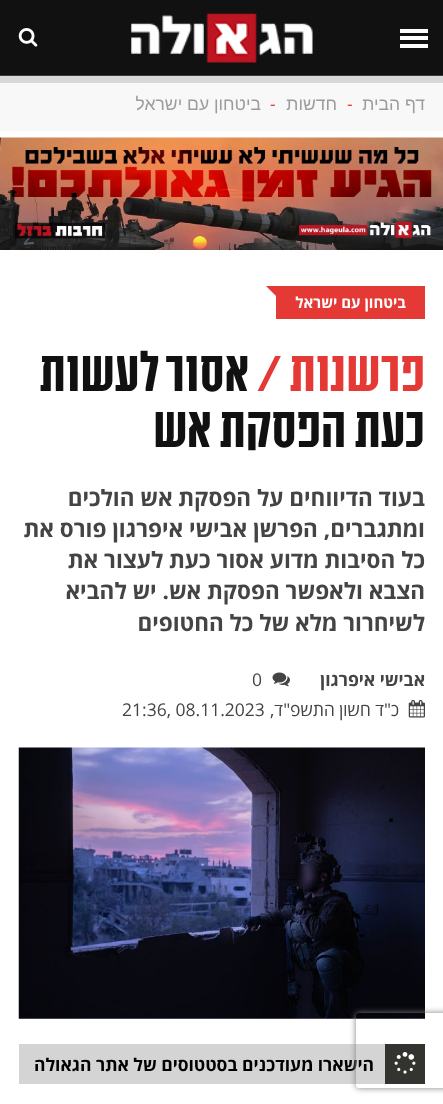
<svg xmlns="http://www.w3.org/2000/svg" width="443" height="1104">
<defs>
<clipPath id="clip1"><path d="M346 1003h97v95h-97zm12.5 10h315c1.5 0 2.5 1 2.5 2.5v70c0 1.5-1 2.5-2.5 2.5h-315c-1.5 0-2.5-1-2.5-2.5v-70c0-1.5 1-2.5 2.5-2.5z" clip-rule="evenodd"/></clipPath>
</defs>
<rect width="100%" height="100%" fill="#f8f8f8"/>
<rect y="75" width="443" height="1" fill="#3a3a3a"/>
<rect width="443" height="75" fill="#111"/>
<image x="131" y="13" width="182" height="50" href="media/1.png"/>
<rect x="400" y="29" width="28" height="4" fill="#fff"/>
<rect x="400" y="36" width="28" height="4" fill="#fff"/>
<rect x="400" y="44" width="28" height="4" fill="#fff"/>
<rect y="76" width="443" height="7" fill="#d8d8d8"/>
<image x="18" y="28" width="20" height="19" href="media/2.png"/>
<text x="425" y="110" style="font-family:Liberation Sans;font-size:17.5px;direction:rtl;fill:#9d9c9c">דף הבית</text>
<text x="347" y="110" style="font-family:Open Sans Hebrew;font-size:17.5px;fill:#e53935">-</text>
<text x="337" y="110" style="font-family:Liberation Sans;font-size:17.5px;direction:rtl;fill:#9d9c9c">חדשות</text>
<text x="270" y="110" style="font-family:Open Sans Hebrew;font-size:17.5px;fill:#e53935">-</text>
<text x="261" y="110" style="font-family:Liberation Sans;font-size:17.5px;direction:rtl;fill:#9d9c9c">ביטחון עם ישראל</text>
<rect y="131" width="443" height="973" fill="#fff"/>
<image x="0" y="137" width="443" height="113" href="media/3.png"/>
<rect x="276" y="286" width="149" height="33" fill="#e53935"/>
<path d="M266 286h10v10z" fill="#e53935"/>
<text x="406" y="308" style="font-family:Open Sans Hebrew;font-size:15px;font-weight:bold;direction:rtl;fill:#fff">ביטחון עם ישראל</text>
<text x="425" y="391" style="font-family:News;font-size:60px;font-weight:600;direction:rtl;fill:#e53935">פרשנות /</text>
<text x="249" y="391" style="font-family:News;font-size:60px;font-weight:600;direction:rtl;fill:#111">אסור לעשות</text>
<text x="425" y="447" style="font-family:News;font-size:60px;font-weight:600;direction:rtl;fill:#111">כעת הפסקת אש</text>
<text x="425" y="506" style="font-family:Open Sans Hebrew;font-size:22.5px;font-weight:bold;direction:rtl;fill:#444">בעוד הדיווחים על הפסקת אש הולכים</text>
<text x="425" y="537" style="font-family:Open Sans Hebrew;font-size:22.5px;font-weight:bold;direction:rtl;fill:#444">ומתגברים, הפרשן אבישי איפרגון פורס את</text>
<text x="425" y="568" style="font-family:Open Sans Hebrew;font-size:22.5px;font-weight:bold;direction:rtl;fill:#444">כל הסיבות מדוע אסור כעת לעצור את</text>
<text x="425" y="599" style="font-family:Open Sans Hebrew;font-size:22.5px;font-weight:bold;direction:rtl;fill:#444">הצבא ולאפשר הפסקת אש. יש להביא</text>
<text x="425" y="631" style="font-family:Open Sans Hebrew;font-size:22.5px;font-weight:bold;direction:rtl;fill:#444">לשיחרור מלא של כל החטופים</text>
<text x="425" y="686" style="font-family:Open Sans Hebrew;font-size:17.5px;font-weight:bold;direction:rtl;fill:#444">אבישי איפרגון</text>
<image x="272" y="672" width="18" height="15" href="media/4.png"/>
<text x="252" y="686" style="font-family:Open Sans Hebrew;font-size:17.5px;fill:#444">0</text>
<image x="408" y="700" width="17" height="18" href="media/5.png"/>
<text x="399" y="716" style="font-family:Open Sans Hebrew;font-size:17.5px;direction:rtl;fill:#444">כ"ד חשון התשפ"ד,</text>
<text x="122" y="716" style="font-family:Open Sans Hebrew;font-size:17.5px;fill:#444">21:36, 08.11.2023</text>
<image x="18" y="747" width="407" height="272" href="media/6.png"/>
<rect x="19" y="1044" width="366" height="40" fill="#d4d4d4"/>
<rect x="385" y="1044" width="40" height="40" fill="#33342f"/>
<image x="394" y="1052" width="22" height="22" href="media/7.png"/>
<text x="374" y="1071" style="font-family:Open Sans Hebrew;font-size:17.5px;font-weight:bold;direction:rtl;fill:#000">הישארו מעודכנים בסטטוסים של אתר הגאולה</text>
<g clip-path="url(#clip1)">
<rect x="356" y="1013" width="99" height="75" rx="2.5" fill="#808080" filter="blur(3px)"/>
</g>
</svg>
